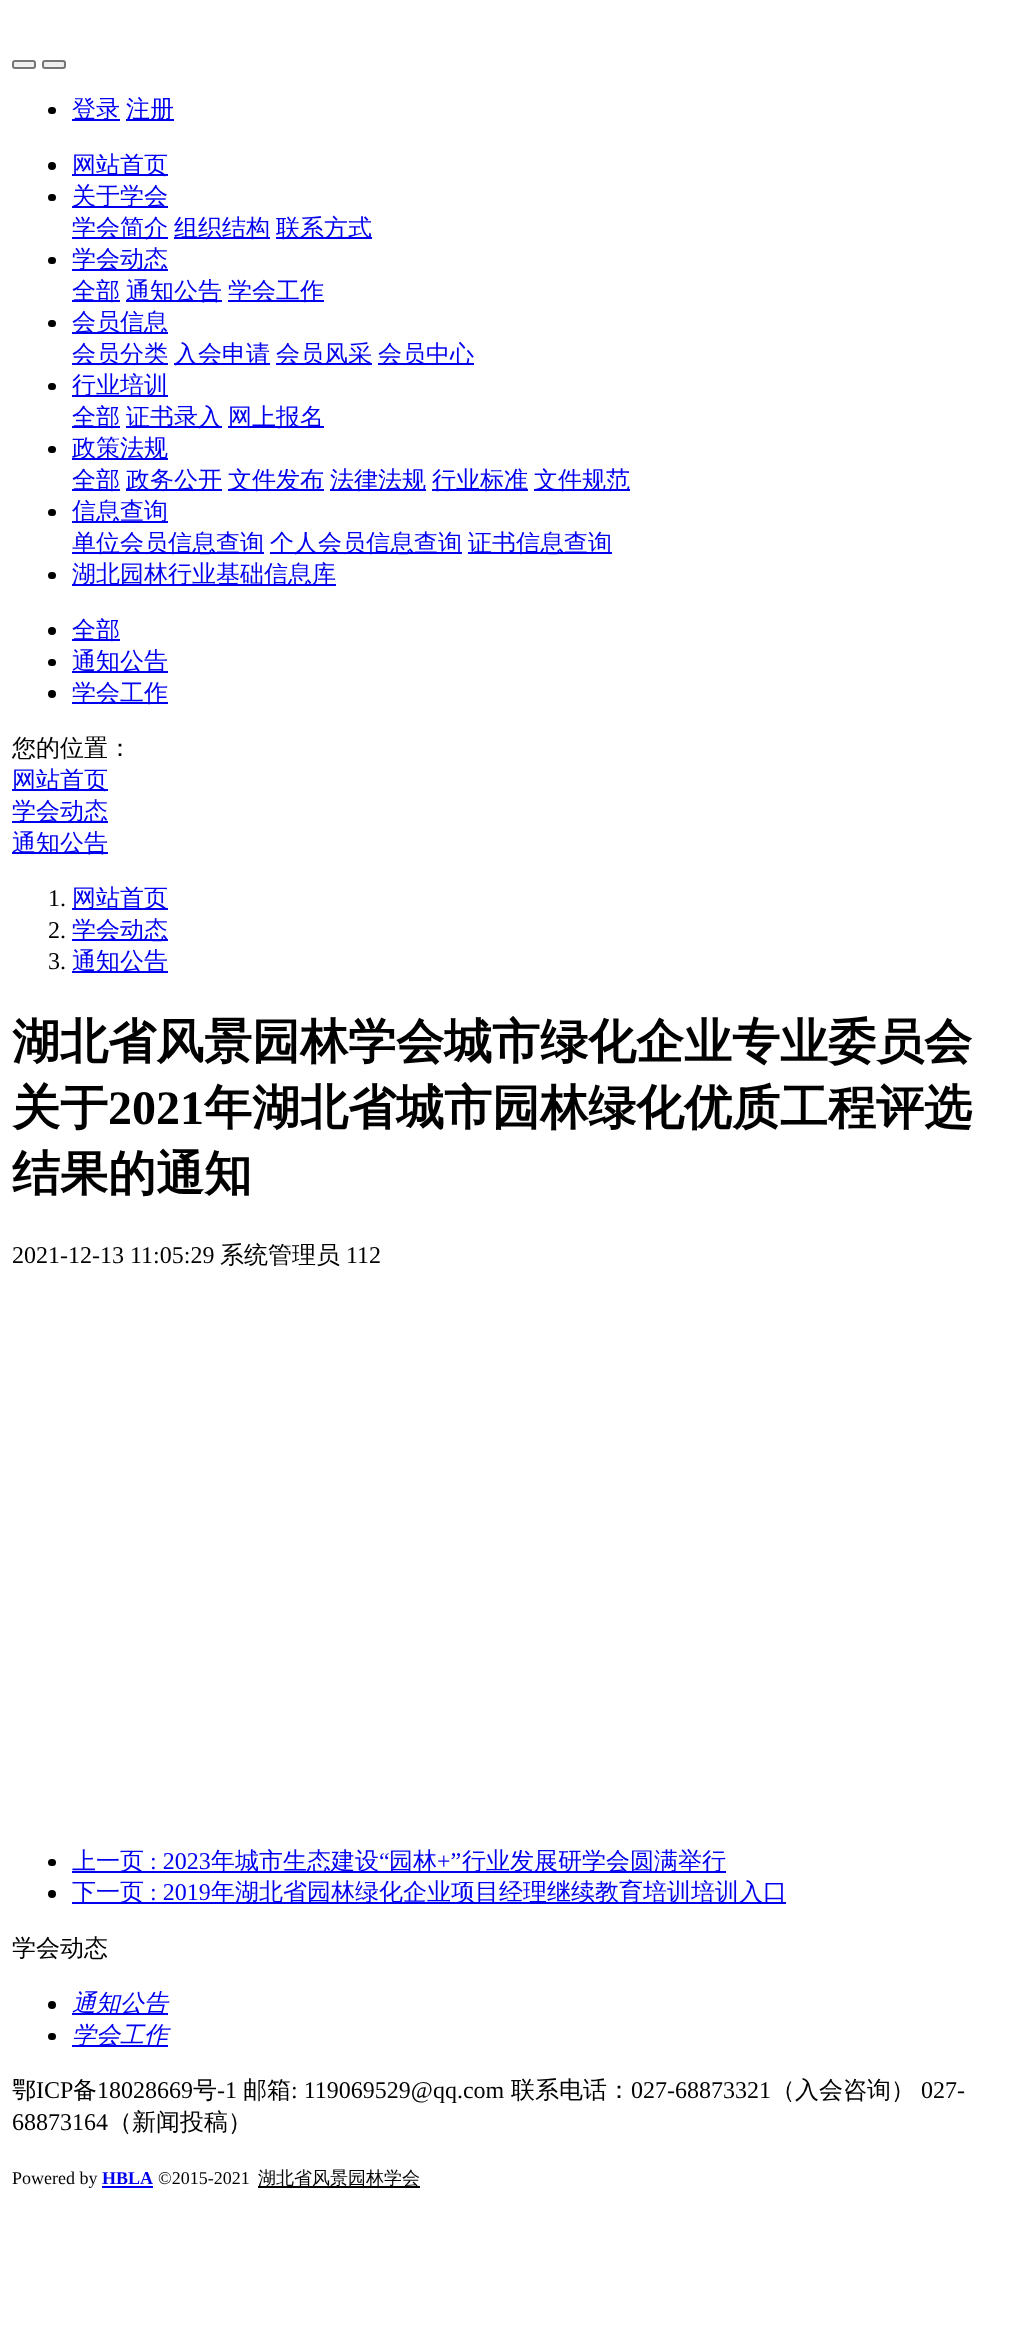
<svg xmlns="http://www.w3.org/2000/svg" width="1014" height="2349">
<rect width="100%" height="100%" fill="#fff"/>
<rect x="13" y="61" width="22" height="7" rx="2" fill="#efefef" stroke="#767676" stroke-width="2"/>
<rect x="43" y="61" width="22" height="7" rx="2" fill="#efefef" stroke="#767676" stroke-width="2"/>
<rect x="48" y="107" width="8" height="7" rx="3.5" fill="#000"/>
<rect x="72" y="119" width="48" height="2" fill="#00e"/>
<text x="72" y="117" style="font-family:WenQuanYi Zen Hei;font-size:24px;font-weight:500;fill:#00e">登录</text>
<rect x="126" y="119" width="48" height="2" fill="#00e"/>
<text x="126" y="117" style="font-family:WenQuanYi Zen Hei;font-size:24px;font-weight:500;fill:#00e">注册</text>
<circle cx="52" cy="166" r="4" fill="#000"/>
<rect x="72" y="174" width="96" height="2" fill="#00e"/>
<text x="72" y="173" style="font-family:WenQuanYi Zen Hei;font-size:24px;font-weight:500;fill:#00e">网站首页</text>
<rect x="48" y="194" width="8" height="7" rx="3.5" fill="#000"/>
<rect x="72" y="206" width="96" height="2" fill="#00e"/>
<text x="72" y="204" style="font-family:WenQuanYi Zen Hei;font-size:24px;font-weight:500;fill:#00e">关于学会</text>
<rect x="72" y="237" width="96" height="2" fill="#00e"/>
<text x="72" y="236" style="font-family:WenQuanYi Zen Hei;font-size:24px;font-weight:500;fill:#00e">学会简介</text>
<rect x="174" y="237" width="96" height="2" fill="#00e"/>
<text x="174" y="236" style="font-family:WenQuanYi Zen Hei;font-size:24px;font-weight:500;fill:#00e">组织结构</text>
<rect x="276" y="237" width="96" height="2" fill="#00e"/>
<text x="276" y="236" style="font-family:WenQuanYi Zen Hei;font-size:24px;font-weight:500;fill:#00e">联系方式</text>
<rect x="48" y="257" width="8" height="7" rx="3.5" fill="#000"/>
<rect x="72" y="269" width="96" height="2" fill="#00e"/>
<text x="72" y="267" style="font-family:WenQuanYi Zen Hei;font-size:24px;font-weight:500;fill:#00e">学会动态</text>
<rect x="72" y="300" width="48" height="2" fill="#00e"/>
<text x="72" y="299" style="font-family:WenQuanYi Zen Hei;font-size:24px;font-weight:500;fill:#00e">全部</text>
<rect x="126" y="300" width="96" height="2" fill="#00e"/>
<text x="126" y="299" style="font-family:WenQuanYi Zen Hei;font-size:24px;font-weight:500;fill:#00e">通知公告</text>
<rect x="228" y="300" width="96" height="2" fill="#00e"/>
<text x="228" y="299" style="font-family:WenQuanYi Zen Hei;font-size:24px;font-weight:500;fill:#00e">学会工作</text>
<rect x="48" y="320" width="8" height="7" rx="3.5" fill="#000"/>
<rect x="72" y="332" width="96" height="2" fill="#00e"/>
<text x="72" y="330" style="font-family:WenQuanYi Zen Hei;font-size:24px;font-weight:500;fill:#00e">会员信息</text>
<rect x="72" y="363" width="96" height="2" fill="#00e"/>
<text x="72" y="362" style="font-family:WenQuanYi Zen Hei;font-size:24px;font-weight:500;fill:#00e">会员分类</text>
<rect x="174" y="363" width="96" height="2" fill="#00e"/>
<text x="174" y="362" style="font-family:WenQuanYi Zen Hei;font-size:24px;font-weight:500;fill:#00e">入会申请</text>
<rect x="276" y="363" width="96" height="2" fill="#00e"/>
<text x="276" y="362" style="font-family:WenQuanYi Zen Hei;font-size:24px;font-weight:500;fill:#00e">会员风采</text>
<rect x="378" y="363" width="96" height="2" fill="#00e"/>
<text x="378" y="362" style="font-family:WenQuanYi Zen Hei;font-size:24px;font-weight:500;fill:#00e">会员中心</text>
<rect x="48" y="383" width="8" height="7" rx="3.5" fill="#000"/>
<rect x="72" y="395" width="96" height="2" fill="#00e"/>
<text x="72" y="393" style="font-family:WenQuanYi Zen Hei;font-size:24px;font-weight:500;fill:#00e">行业培训</text>
<rect x="72" y="426" width="48" height="2" fill="#00e"/>
<text x="72" y="425" style="font-family:WenQuanYi Zen Hei;font-size:24px;font-weight:500;fill:#00e">全部</text>
<rect x="126" y="426" width="96" height="2" fill="#00e"/>
<text x="126" y="425" style="font-family:WenQuanYi Zen Hei;font-size:24px;font-weight:500;fill:#00e">证书录入</text>
<rect x="228" y="426" width="96" height="2" fill="#00e"/>
<text x="228" y="425" style="font-family:WenQuanYi Zen Hei;font-size:24px;font-weight:500;fill:#00e">网上报名</text>
<rect x="48" y="446" width="8" height="7" rx="3.5" fill="#000"/>
<rect x="72" y="458" width="96" height="2" fill="#00e"/>
<text x="72" y="456" style="font-family:WenQuanYi Zen Hei;font-size:24px;font-weight:500;fill:#00e">政策法规</text>
<rect x="72" y="489" width="48" height="2" fill="#00e"/>
<text x="72" y="488" style="font-family:WenQuanYi Zen Hei;font-size:24px;font-weight:500;fill:#00e">全部</text>
<rect x="126" y="489" width="96" height="2" fill="#00e"/>
<text x="126" y="488" style="font-family:WenQuanYi Zen Hei;font-size:24px;font-weight:500;fill:#00e">政务公开</text>
<rect x="228" y="489" width="96" height="2" fill="#00e"/>
<text x="228" y="488" style="font-family:WenQuanYi Zen Hei;font-size:24px;font-weight:500;fill:#00e">文件发布</text>
<rect x="330" y="489" width="96" height="2" fill="#00e"/>
<text x="330" y="488" style="font-family:WenQuanYi Zen Hei;font-size:24px;font-weight:500;fill:#00e">法律法规</text>
<rect x="432" y="489" width="96" height="2" fill="#00e"/>
<text x="432" y="488" style="font-family:WenQuanYi Zen Hei;font-size:24px;font-weight:500;fill:#00e">行业标准</text>
<rect x="534" y="489" width="96" height="2" fill="#00e"/>
<text x="534" y="488" style="font-family:WenQuanYi Zen Hei;font-size:24px;font-weight:500;fill:#00e">文件规范</text>
<rect x="48" y="509" width="8" height="7" rx="3.5" fill="#000"/>
<rect x="72" y="521" width="96" height="2" fill="#00e"/>
<text x="72" y="519" style="font-family:WenQuanYi Zen Hei;font-size:24px;font-weight:500;fill:#00e">信息查询</text>
<rect x="72" y="552" width="192" height="2" fill="#00e"/>
<text x="72" y="551" style="font-family:WenQuanYi Zen Hei;font-size:24px;font-weight:500;fill:#00e">单位会员信息查询</text>
<rect x="270" y="552" width="192" height="2" fill="#00e"/>
<text x="270" y="551" style="font-family:WenQuanYi Zen Hei;font-size:24px;font-weight:500;fill:#00e">个人会员信息查询</text>
<rect x="468" y="552" width="144" height="2" fill="#00e"/>
<text x="468" y="551" style="font-family:WenQuanYi Zen Hei;font-size:24px;font-weight:500;fill:#00e">证书信息查询</text>
<rect x="48" y="572" width="8" height="7" rx="3.5" fill="#000"/>
<rect x="72" y="584" width="264" height="2" fill="#00e"/>
<text x="72" y="582" style="font-family:WenQuanYi Zen Hei;font-size:24px;font-weight:500;fill:#00e">湖北园林行业基础信息库</text>
<circle cx="52" cy="631" r="4" fill="#000"/>
<rect x="72" y="639" width="48" height="2" fill="#00e"/>
<text x="72" y="638" style="font-family:WenQuanYi Zen Hei;font-size:24px;font-weight:500;fill:#00e">全部</text>
<rect x="48" y="659" width="8" height="7" rx="3.5" fill="#000"/>
<rect x="72" y="671" width="96" height="2" fill="#00e"/>
<text x="72" y="669" style="font-family:WenQuanYi Zen Hei;font-size:24px;font-weight:500;fill:#00e">通知公告</text>
<circle cx="52" cy="694" r="4" fill="#000"/>
<rect x="72" y="702" width="96" height="2" fill="#00e"/>
<text x="72" y="701" style="font-family:WenQuanYi Zen Hei;font-size:24px;font-weight:500;fill:#00e">学会工作</text>
<text x="12" y="756" style="font-family:WenQuanYi Zen Hei;font-size:24px;font-weight:500;fill:#000">您的位置：</text>
<rect x="12" y="789" width="96" height="2" fill="#00e"/>
<text x="12" y="788" style="font-family:WenQuanYi Zen Hei;font-size:24px;font-weight:500;fill:#00e">网站首页</text>
<rect x="12" y="821" width="96" height="2" fill="#00e"/>
<text x="12" y="819" style="font-family:WenQuanYi Zen Hei;font-size:24px;font-weight:500;fill:#00e">学会动态</text>
<rect x="12" y="852" width="96" height="2" fill="#00e"/>
<text x="12" y="851" style="font-family:WenQuanYi Zen Hei;font-size:24px;font-weight:500;fill:#00e">通知公告</text>
<text x="48" y="906" style="font-family:Liberation Serif;font-size:24px;fill:#000">1.</text>
<rect x="72" y="908" width="96" height="2" fill="#00e"/>
<text x="72" y="906" style="font-family:WenQuanYi Zen Hei;font-size:24px;font-weight:500;fill:#00e">网站首页</text>
<text x="48" y="938" style="font-family:Liberation Serif;font-size:24px;fill:#000">2.</text>
<rect x="72" y="939" width="96" height="2" fill="#00e"/>
<text x="72" y="938" style="font-family:WenQuanYi Zen Hei;font-size:24px;font-weight:500;fill:#00e">学会动态</text>
<text x="48" y="969" style="font-family:Liberation Serif;font-size:24px;fill:#000">3.</text>
<rect x="72" y="971" width="96" height="2" fill="#00e"/>
<text x="72" y="969" style="font-family:WenQuanYi Zen Hei;font-size:24px;font-weight:500;fill:#00e">通知公告</text>
<text x="12" y="1058" style="font-family:WenQuanYi Zen Hei;font-size:48px;font-weight:bold;fill:#000">湖北省风景园林学会城市绿化企业专业委员会</text>
<text x="12" y="1124" style="font-family:WenQuanYi Zen Hei;font-size:48px;font-weight:bold;fill:#000">关于</text>
<text x="108" y="1124" style="font-family:Liberation Serif;font-size:48px;font-weight:bold;fill:#000">2021</text>
<text x="204" y="1124" style="font-family:WenQuanYi Zen Hei;font-size:48px;font-weight:bold;fill:#000">年湖北省城市园林绿化优质工程评选</text>
<text x="12" y="1190" style="font-family:WenQuanYi Zen Hei;font-size:48px;font-weight:bold;fill:#000">结果的通知</text>
<text x="12" y="1263" style="font-family:Liberation Serif;font-size:24px;fill:#000">2021-12-13 11:05:29</text>
<text x="220" y="1263" style="font-family:WenQuanYi Zen Hei;font-size:24px;font-weight:500;fill:#000">系统管理员</text>
<text x="346" y="1263" style="font-family:Liberation Serif;font-size:24px;fill:#000">112</text>
<rect x="48" y="1859" width="8" height="7" rx="3.5" fill="#000"/>
<rect x="72" y="1871" width="654" height="2" fill="#00e"/>
<text x="72" y="1869" style="font-family:WenQuanYi Zen Hei;font-size:24px;font-weight:500;fill:#00e">上一页</text>
<text x="150" y="1869" style="font-family:Liberation Serif;font-size:24px;fill:#00e">: 2023</text>
<text x="211" y="1869" style="font-family:WenQuanYi Zen Hei;font-size:24px;font-weight:500;fill:#00e">年城市生态建设</text>
<text x="379" y="1869" style="font-family:Liberation Serif;font-size:24px;fill:#00e">“</text>
<text x="389" y="1869" style="font-family:WenQuanYi Zen Hei;font-size:24px;font-weight:500;fill:#00e">园林</text>
<text x="437" y="1869" style="font-family:Liberation Serif;font-size:24px;fill:#00e">+”</text>
<text x="462" y="1869" style="font-family:WenQuanYi Zen Hei;font-size:24px;font-weight:500;fill:#00e">行业发展研学会圆满举行</text>
<circle cx="52" cy="1894" r="4" fill="#000"/>
<rect x="72" y="1902" width="714" height="2" fill="#00e"/>
<text x="72" y="1900" style="font-family:WenQuanYi Zen Hei;font-size:24px;font-weight:500;fill:#00e">下一页</text>
<text x="150" y="1900" style="font-family:Liberation Serif;font-size:24px;fill:#00e">: 2019</text>
<text x="211" y="1900" style="font-family:WenQuanYi Zen Hei;font-size:24px;font-weight:500;fill:#00e">年湖北省园林绿化企业项目经理继续教育培训培训入口</text>
<text x="12" y="1956" style="font-family:WenQuanYi Zen Hei;font-size:24px;font-weight:500;fill:#000">学会动态</text>
<circle cx="52" cy="2005" r="4" fill="#000"/>
<rect x="72" y="2013" width="96" height="2" fill="#00e"/>
<text x="72" y="2011" style="font-family:WenQuanYi Zen Hei;font-size:24px;font-weight:500;font-style:italic;fill:#00e">通知公告</text>
<rect x="48" y="2033" width="8" height="7" rx="3.5" fill="#000"/>
<rect x="72" y="2045" width="96" height="2" fill="#00e"/>
<text x="72" y="2043" style="font-family:WenQuanYi Zen Hei;font-size:24px;font-weight:500;font-style:italic;fill:#00e">学会工作</text>
<text x="12" y="2098" style="font-family:WenQuanYi Zen Hei;font-size:24px;font-weight:500;fill:#000">鄂</text>
<text x="36" y="2098" style="font-family:Liberation Serif;font-size:24px;fill:#000">ICP</text>
<text x="73" y="2098" style="font-family:WenQuanYi Zen Hei;font-size:24px;font-weight:500;fill:#000">备</text>
<text x="97" y="2098" style="font-family:Liberation Serif;font-size:24px;fill:#000">18028669</text>
<text x="193" y="2098" style="font-family:WenQuanYi Zen Hei;font-size:24px;font-weight:500;fill:#000">号</text>
<text x="217" y="2098" style="font-family:Liberation Serif;font-size:24px;fill:#000">-1</text>
<text x="243" y="2098" style="font-family:WenQuanYi Zen Hei;font-size:24px;font-weight:500;fill:#000">邮箱</text>
<text x="291" y="2098" style="font-family:Liberation Serif;font-size:24px;fill:#000">: 119069529@qq.com</text>
<text x="511" y="2098" style="font-family:WenQuanYi Zen Hei;font-size:24px;font-weight:500;fill:#000">联系电话：</text>
<text x="631" y="2098" style="font-family:Liberation Serif;font-size:24px;fill:#000">027-68873321</text>
<text x="771" y="2098" style="font-family:WenQuanYi Zen Hei;font-size:24px;font-weight:500;fill:#000">（入会咨询）</text>
<text x="921" y="2098" style="font-family:Liberation Serif;font-size:24px;fill:#000">027-</text>
<text x="12" y="2130" style="font-family:Liberation Serif;font-size:24px;fill:#000">68873164</text>
<text x="108" y="2130" style="font-family:WenQuanYi Zen Hei;font-size:24px;font-weight:500;fill:#000">（新闻投稿）</text>
<text x="12" y="2184" style="font-family:Liberation Serif;font-size:18px;fill:#000">Powered by</text>
<text x="102" y="2184" style="font-family:Liberation Serif;font-size:18px;font-weight:bold;fill:#00e">HBLA</text>
<rect x="102" y="2186" width="51" height="2" fill="#00e"/>
<text x="158" y="2184" style="font-family:Liberation Serif;font-size:18px;fill:#000">©2015-2021</text>
<rect x="258" y="2186" width="162" height="2" fill="#000"/>
<text x="258" y="2184" style="font-family:WenQuanYi Zen Hei;font-size:18px;font-weight:500;fill:#000">湖北省风景园林学会</text>
</svg>
